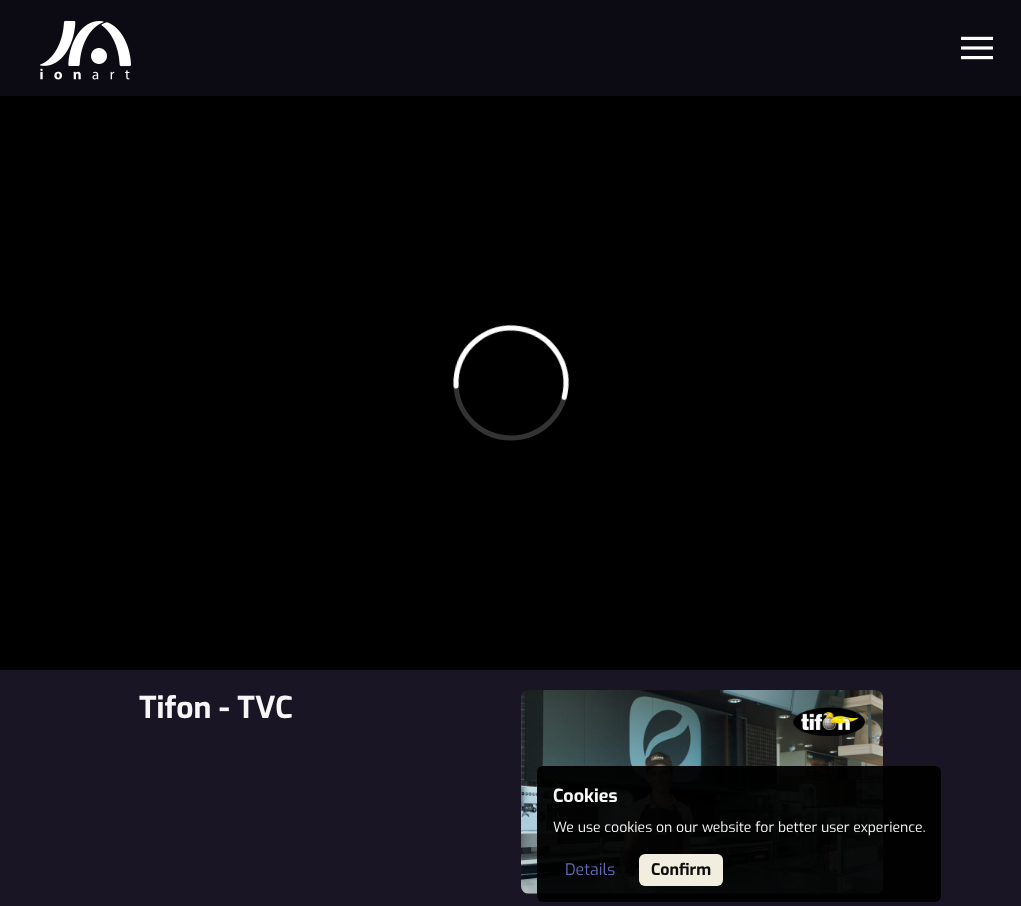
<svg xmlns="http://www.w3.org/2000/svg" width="1021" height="906">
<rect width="100%" height="100%" fill="#191525"/>
<rect width="1021" height="96" fill="#00000080"/>
<image x="40" y="20" width="91" height="60" href="media/1.png"/>
<image x="961" y="36" width="32" height="24" href="media/2.png"/>
<image x="0" y="96" width="1021" height="574" href="media/3.png"/>
<text x="139" y="718" style="font-family:Exo;font-size:30px;font-weight:bold;fill:#f7f7f7">Tifon - TVC</text>
<image x="521" y="690" width="362" height="204" href="media/4.png"/>
<rect x="537" y="766" width="404" height="136" rx="6" fill="#000000f2"/>
<text x="553" y="802" style="font-family:Exo;font-size:18px;font-weight:bold;fill:#f7f7f7">Cookies</text>
<text x="553" y="832" style="font-family:Exo;font-size:14px;fill:#f7f7f7">We use cookies on our website for better user experience.</text>
<text x="565" y="875" style="font-family:Exo;font-size:16px;fill:#626ab4">Details</text>
<rect x="639" y="854" width="84" height="32" rx="6" fill="#fffbebf2"/>
<text x="651" y="875" style="font-family:Exo;font-size:16px;font-weight:bold;fill:#0c0c0b">Confirm</text>
</svg>
